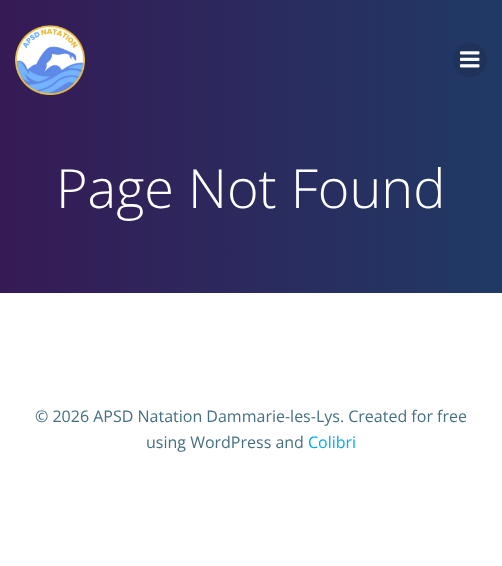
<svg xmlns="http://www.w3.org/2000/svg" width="502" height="566">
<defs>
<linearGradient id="g1" gradientUnits="userSpaceOnUse" x1="0" y1="147" x2="502" y2="146"><stop offset="0" stop-color="#361a56"/><stop offset="1" stop-color="#203a65"/></linearGradient>
</defs>
<rect width="100%" height="100%" fill="#fff"/>
<rect width="502" height="293" fill="url(#g1)"/>
<image x="15" y="25" width="70" height="70" href="media/1.png"/>
<circle cx="470" cy="60" r="17" fill="#1e325a"/>
<image x="460" y="51" width="20" height="17" href="media/2.png"/>
<text x="56" y="208" style="font-family:Open Sans;font-size:54px;font-weight:300;fill:#fff">Page Not Found</text>
<text x="35" y="422" style="font-family:Open Sans;font-size:16px;fill:#46707f">© 2026 APSD Natation Dammarie-les-Lys. Created for free</text>
<text x="146" y="448" style="font-family:Open Sans;font-size:16px;fill:#46707f">using WordPress and</text>
<text x="308" y="448" style="font-family:Open Sans;font-size:16px;fill:#03a9f4">Colibri</text>
</svg>
